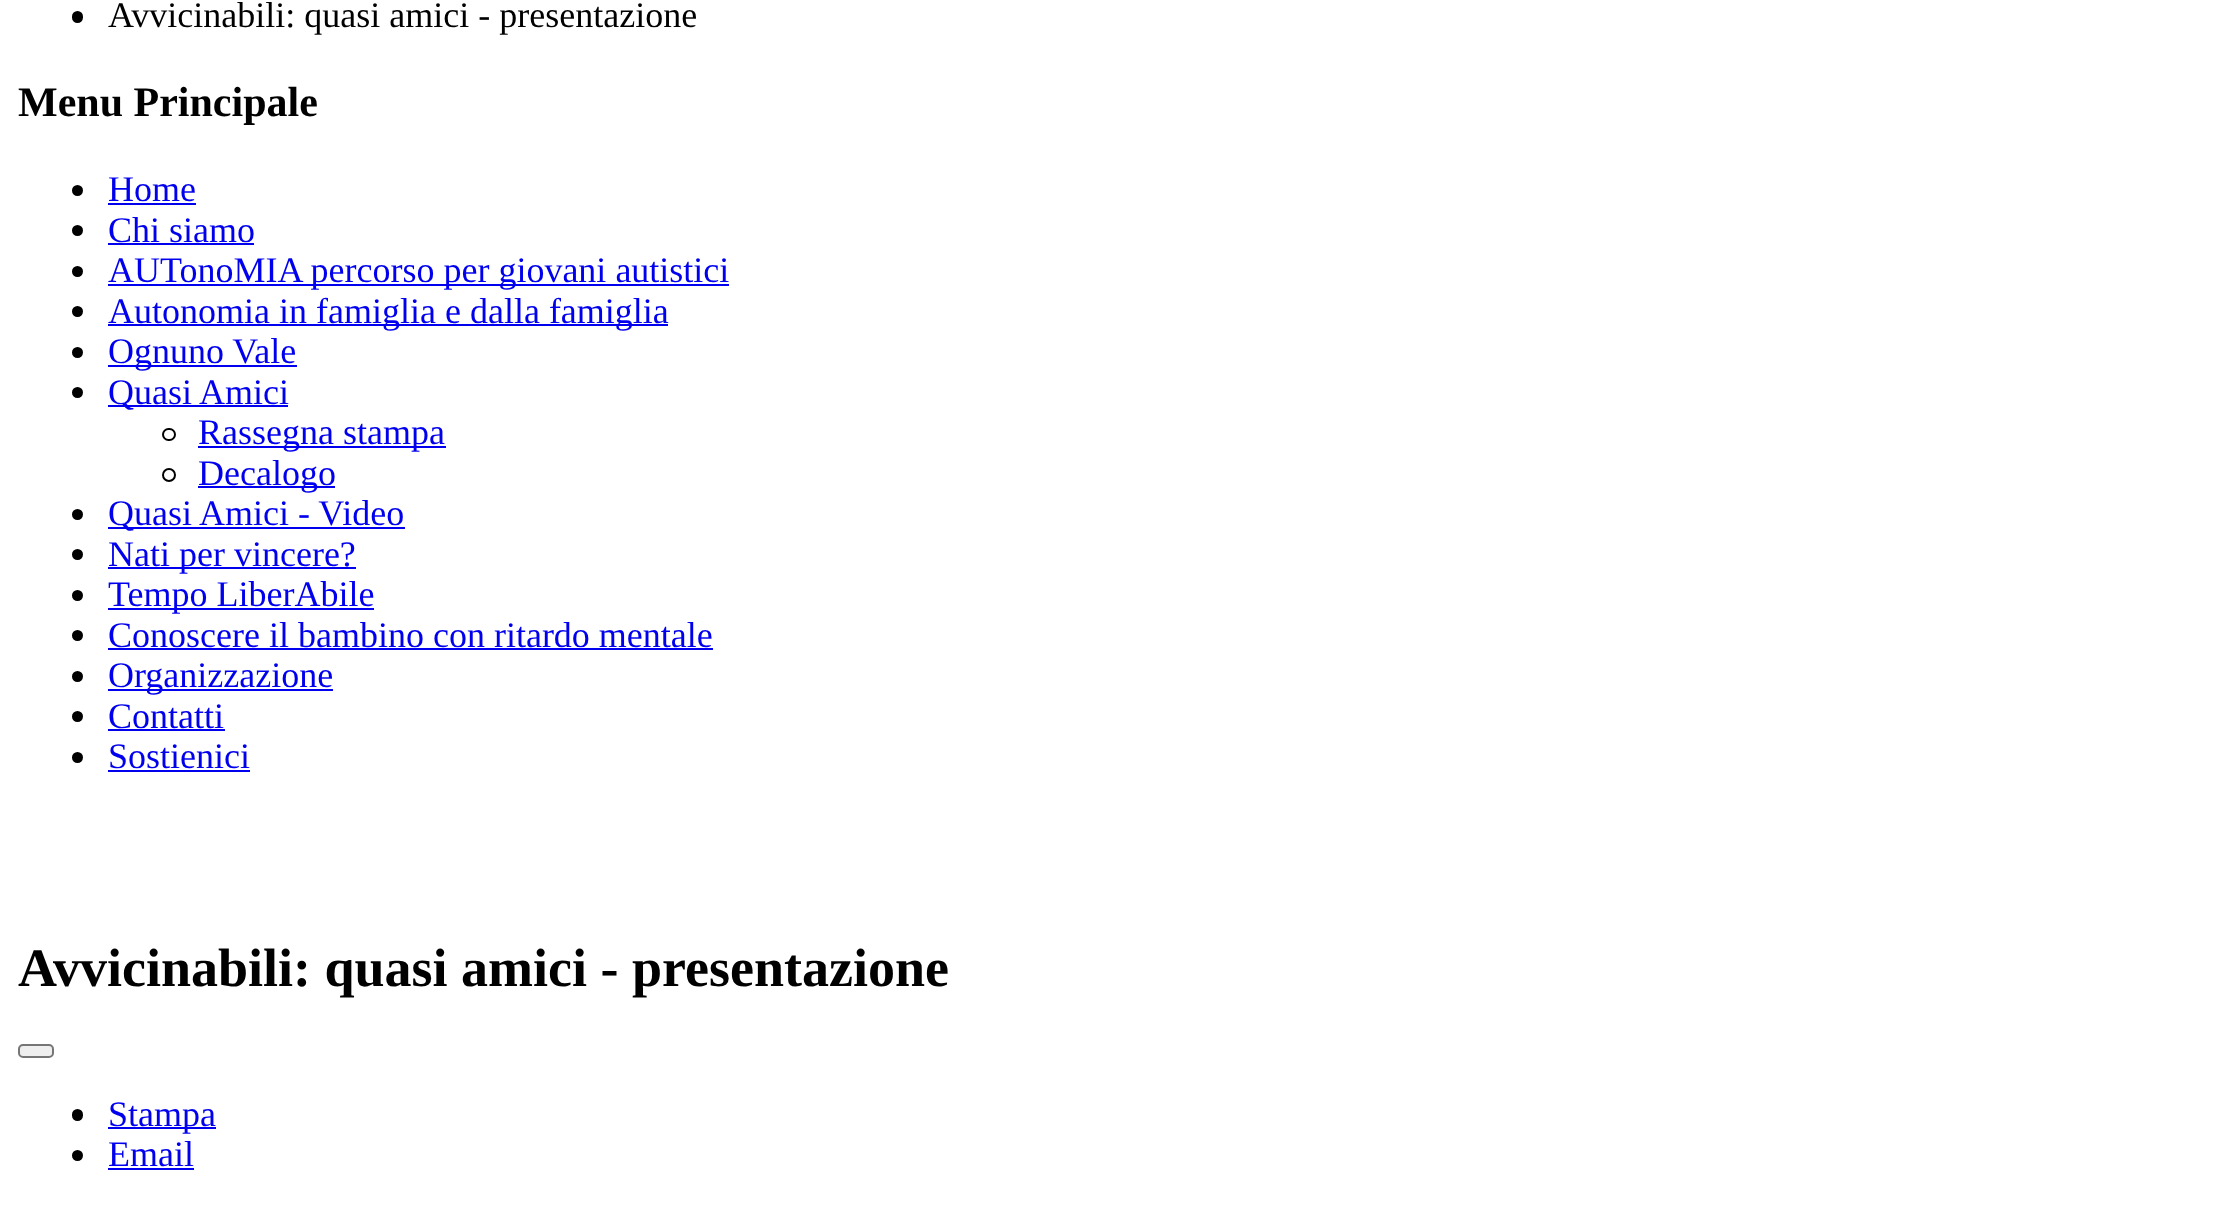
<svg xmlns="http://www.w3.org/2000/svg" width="2217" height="1206">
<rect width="100%" height="100%" fill="#fff"/>
<rect x="72" y="11" width="11" height="12" rx="5.5" fill="#000"/>
<text x="108" y="27" style="font-family:Liberation Serif;font-size:36px;fill:#000">Avvicinabili: quasi amici - presentazione</text>
<text x="18" y="116" style="font-family:Liberation Serif;font-size:42px;font-weight:bold;fill:#000">Menu Principale</text>
<circle cx="77.5" cy="190.5" r="5.5" fill="#000"/>
<text x="108" y="201" style="font-family:Liberation Serif;font-size:36px;fill:#00e">Home</text>
<rect x="108" y="203" width="88" height="2" fill="#00e"/>
<circle cx="77.5" cy="230.5" r="5.5" fill="#000"/>
<text x="108" y="242" style="font-family:Liberation Serif;font-size:36px;fill:#00e">Chi siamo</text>
<rect x="108" y="243" width="146" height="2" fill="#00e"/>
<circle cx="77.5" cy="271.5" r="5.5" fill="#000"/>
<rect x="108" y="284" width="621" height="2" fill="#00e"/>
<text x="108" y="282" style="font-family:Liberation Serif;font-size:36px;fill:#00e">AUTonoMIA percorso per giovani autistici</text>
<circle cx="77.5" cy="311.5" r="5.5" fill="#000"/>
<rect x="108" y="324" width="560" height="2" fill="#00e"/>
<text x="108" y="323" style="font-family:Liberation Serif;font-size:36px;fill:#00e">Autonomia in famiglia e dalla famiglia</text>
<circle cx="77.5" cy="352.5" r="5.5" fill="#000"/>
<rect x="108" y="365" width="189" height="2" fill="#00e"/>
<text x="108" y="363" style="font-family:Liberation Serif;font-size:36px;fill:#00e">Ognuno Vale</text>
<circle cx="77.5" cy="392.5" r="5.5" fill="#000"/>
<rect x="108" y="405" width="180" height="2" fill="#00e"/>
<text x="108" y="404" style="font-family:Liberation Serif;font-size:36px;fill:#00e">Quasi Amici</text>
<rect x="163" y="429" width="12" height="11" rx="5.5" fill="none" stroke="#000" stroke-width="2"/>
<rect x="198" y="446" width="248" height="2" fill="#00e"/>
<text x="198" y="444" style="font-family:Liberation Serif;font-size:36px;fill:#00e">Rassegna stampa</text>
<circle cx="169" cy="475" r="6" fill="none" stroke="#000" stroke-width="2"/>
<rect x="198" y="486" width="137" height="2" fill="#00e"/>
<text x="198" y="485" style="font-family:Liberation Serif;font-size:36px;fill:#00e">Decalogo</text>
<circle cx="77.5" cy="514.5" r="5.5" fill="#000"/>
<rect x="108" y="527" width="297" height="2" fill="#00e"/>
<text x="108" y="525" style="font-family:Liberation Serif;font-size:36px;fill:#00e">Quasi Amici - Video</text>
<circle cx="77.5" cy="554.5" r="5.5" fill="#000"/>
<rect x="108" y="567" width="248" height="2" fill="#00e"/>
<text x="108" y="566" style="font-family:Liberation Serif;font-size:36px;fill:#00e">Nati per vincere?</text>
<circle cx="77.5" cy="595.5" r="5.5" fill="#000"/>
<rect x="108" y="608" width="266" height="2" fill="#00e"/>
<text x="108" y="606" style="font-family:Liberation Serif;font-size:36px;fill:#00e">Tempo LiberAbile</text>
<circle cx="77.5" cy="635.5" r="5.5" fill="#000"/>
<text x="108" y="647" style="font-family:Liberation Serif;font-size:36px;fill:#00e">Conoscere il bambino con ritardo mentale</text>
<rect x="108" y="648" width="605" height="2" fill="#00e"/>
<circle cx="77.5" cy="676.5" r="5.5" fill="#000"/>
<rect x="108" y="689" width="225" height="2" fill="#00e"/>
<text x="108" y="687" style="font-family:Liberation Serif;font-size:36px;fill:#00e">Organizzazione</text>
<circle cx="77.5" cy="716.5" r="5.5" fill="#000"/>
<text x="108" y="728" style="font-family:Liberation Serif;font-size:36px;fill:#00e">Contatti</text>
<rect x="108" y="729" width="117" height="2" fill="#00e"/>
<circle cx="77.5" cy="757.5" r="5.5" fill="#000"/>
<text x="108" y="768" style="font-family:Liberation Serif;font-size:36px;fill:#00e">Sostienici</text>
<rect x="108" y="770" width="142" height="2" fill="#00e"/>
<text x="18" y="986" style="font-family:Liberation Serif;font-size:54px;font-weight:bold;fill:#000">Avvicinabili: quasi amici - presentazione</text>
<rect x="19" y="1045" width="34" height="12" rx="4" fill="#efefef" stroke="#767676" stroke-width="2"/>
<rect x="72" y="1109" width="11" height="12" rx="5.5" fill="#000"/>
<rect x="108" y="1127" width="108" height="2" fill="#00e"/>
<text x="108" y="1126" style="font-family:Liberation Serif;font-size:36px;fill:#00e">Stampa</text>
<circle cx="77.5" cy="1155.5" r="5.5" fill="#000"/>
<text x="108" y="1166" style="font-family:Liberation Serif;font-size:36px;fill:#00e">Email</text>
<rect x="108" y="1168" width="86" height="2" fill="#00e"/>
</svg>
